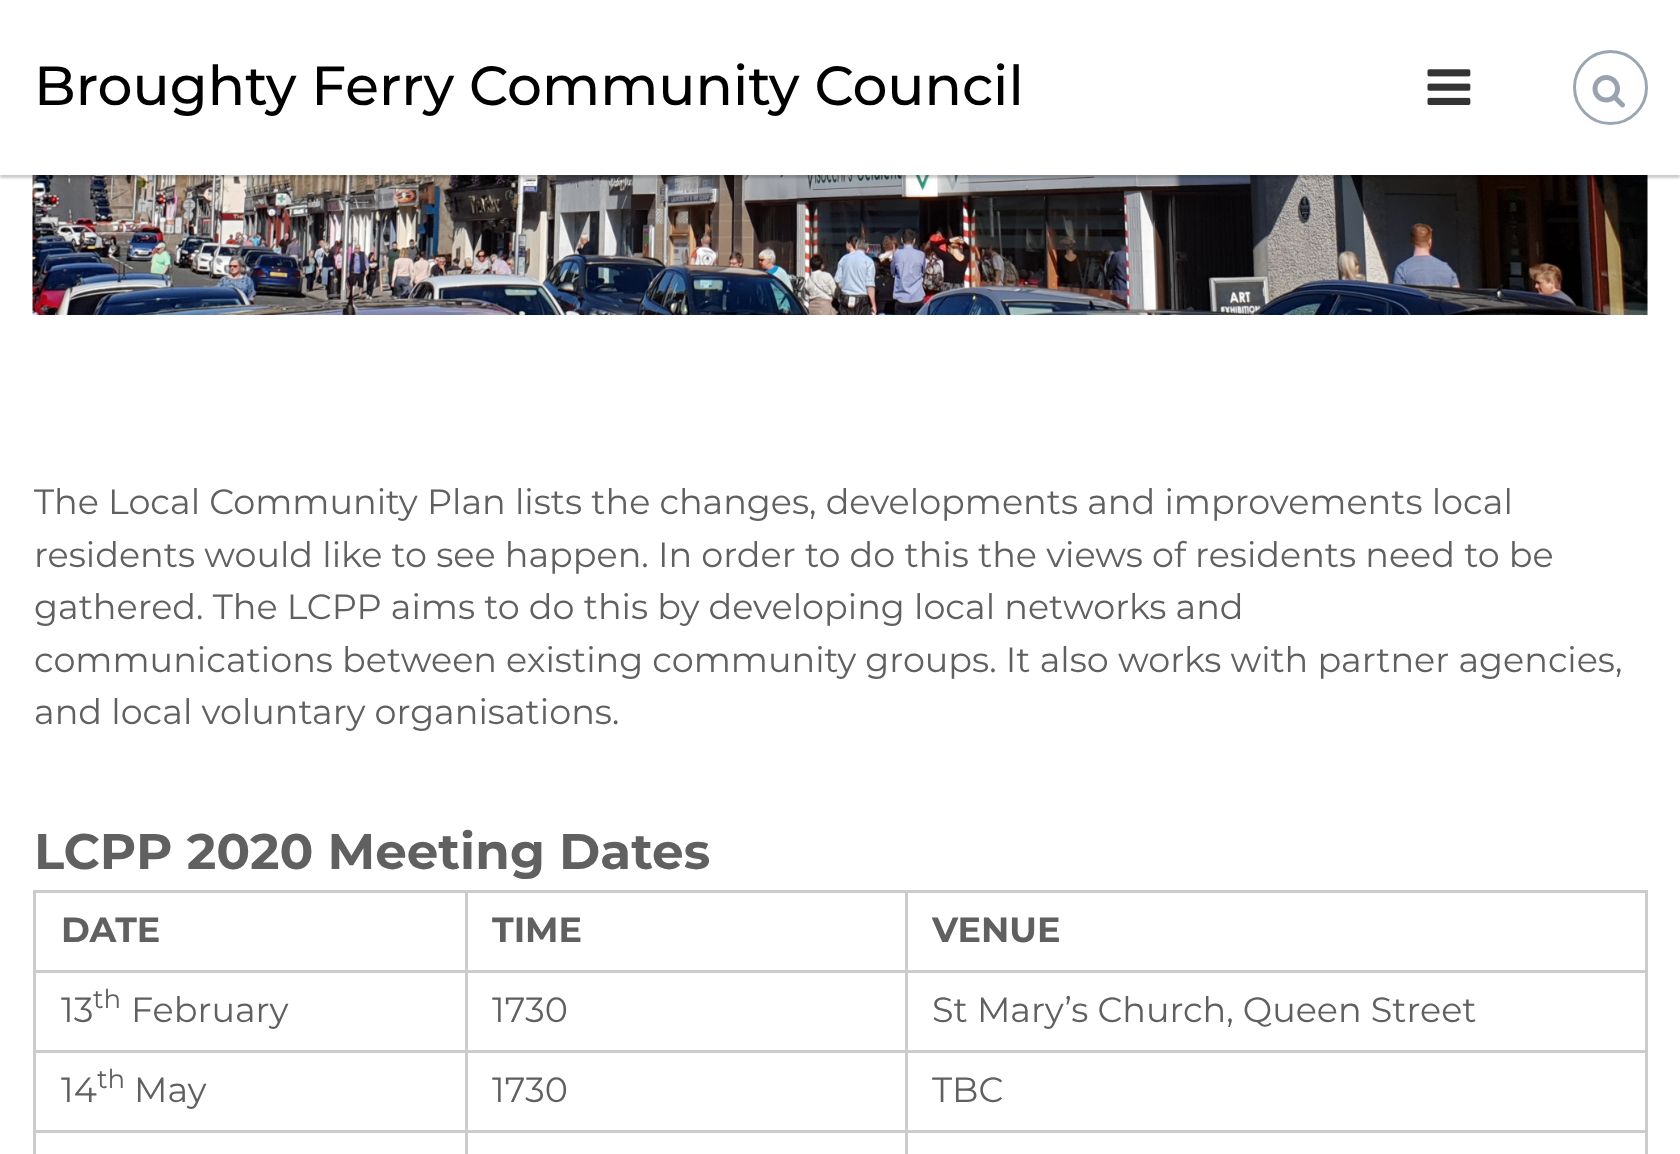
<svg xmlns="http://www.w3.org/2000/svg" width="1680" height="1154">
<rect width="100%" height="100%" fill="#fff"/>
<image x="32" y="175" width="1616" height="140" href="media/3.png"/>
<rect y="3" width="1680" height="175" fill="#00000033" filter="blur(1px)"/>
<rect y="1" width="1680" height="174" fill="#fff"/>
<text x="34" y="105" style="font-family:Montserrat;font-size:55px;font-weight:500;fill:#000">Broughty Ferry Community Council</text>
<image x="1427" y="69" width="44" height="36" href="media/1.png"/>
<circle cx="1610.5" cy="87.5" r="36" fill="none" stroke="#9ca6b2" stroke-width="3"/>
<image x="1592" y="75" width="33" height="33" href="media/2.png"/>
<text x="34" y="514" style="font-family:Montserrat;font-size:35px;fill:#606060">The Local Community Plan lists the changes, developments and improvements local</text>
<text x="34" y="567" style="font-family:Montserrat;font-size:35px;fill:#606060">residents would like to see happen. In order to do this the views of residents need to be</text>
<text x="34" y="619" style="font-family:Montserrat;font-size:35px;fill:#606060">gathered. The LCPP aims to do this by developing local networks and</text>
<text x="34" y="672" style="font-family:Montserrat;font-size:35px;fill:#606060">communications between existing community groups. It also works with partner agencies,</text>
<text x="34" y="724" style="font-family:Montserrat;font-size:35px;fill:#606060">and local voluntary organisations.</text>
<text x="34" y="869" style="font-family:Montserrat;font-size:50px;font-weight:bold;fill:#606060">LCPP 2020 Meeting Dates</text>
<rect x="905" y="890" width="743" height="3" fill="#ccc"/>
<rect x="905" y="970" width="743" height="3" fill="#ccc"/>
<rect x="905" y="1050" width="743" height="3" fill="#ccc"/>
<rect x="905" y="1130" width="743" height="3" fill="#ccc"/>
<rect x="905" y="1130" width="3" height="24" fill="#ccc"/>
<rect x="465" y="1130" width="443" height="3" fill="#ccc"/>
<rect x="905" y="1050" width="3" height="83" fill="#ccc"/>
<rect x="465" y="1050" width="443" height="3" fill="#ccc"/>
<rect x="905" y="970" width="3" height="83" fill="#ccc"/>
<rect x="465" y="970" width="443" height="3" fill="#ccc"/>
<rect x="905" y="890" width="3" height="83" fill="#ccc"/>
<rect x="465" y="890" width="443" height="3" fill="#ccc"/>
<rect x="465" y="1130" width="3" height="24" fill="#ccc"/>
<rect x="33" y="1130" width="435" height="3" fill="#ccc"/>
<rect x="465" y="1050" width="3" height="83" fill="#ccc"/>
<rect x="33" y="1050" width="435" height="3" fill="#ccc"/>
<rect x="465" y="970" width="3" height="83" fill="#ccc"/>
<rect x="33" y="970" width="435" height="3" fill="#ccc"/>
<rect x="465" y="890" width="3" height="83" fill="#ccc"/>
<rect x="33" y="890" width="435" height="3" fill="#ccc"/>
<rect x="33" y="1130" width="3" height="24" fill="#ccc"/>
<rect x="33" y="1050" width="3" height="83" fill="#ccc"/>
<rect x="33" y="970" width="3" height="83" fill="#ccc"/>
<rect x="33" y="890" width="3" height="83" fill="#ccc"/>
<text x="61" y="942" style="font-family:Montserrat;font-size:35px;font-weight:bold;fill:#606060">DATE</text>
<text x="492" y="942" style="font-family:Montserrat;font-size:35px;font-weight:bold;fill:#606060">TIME</text>
<rect x="1645" y="1130" width="3" height="24" fill="#ccc"/>
<rect x="1645" y="1050" width="3" height="83" fill="#ccc"/>
<rect x="1645" y="970" width="3" height="83" fill="#ccc"/>
<rect x="1645" y="890" width="3" height="83" fill="#ccc"/>
<text x="932" y="942" style="font-family:Montserrat;font-size:35px;font-weight:bold;fill:#606060">VENUE</text>
<text x="61" y="1022" style="font-family:Montserrat;font-size:35px;fill:#606060">13</text>
<text x="93" y="1008" style="font-family:Montserrat;font-size:26px;fill:#606060">th</text>
<text x="131" y="1022" style="font-family:Montserrat;font-size:35px;fill:#606060">February</text>
<text x="492" y="1022" style="font-family:Montserrat;font-size:35px;fill:#606060">1730</text>
<text x="932" y="1022" style="font-family:Montserrat;font-size:35px;fill:#606060">St Mary’s Church, Queen Street</text>
<text x="61" y="1102" style="font-family:Montserrat;font-size:35px;fill:#606060">14</text>
<text x="97" y="1088" style="font-family:Montserrat;font-size:26px;fill:#606060">th</text>
<text x="134" y="1102" style="font-family:Montserrat;font-size:35px;fill:#606060">May</text>
<text x="492" y="1102" style="font-family:Montserrat;font-size:35px;fill:#606060">1730</text>
<text x="932" y="1102" style="font-family:Montserrat;font-size:35px;fill:#606060">TBC</text>
</svg>
